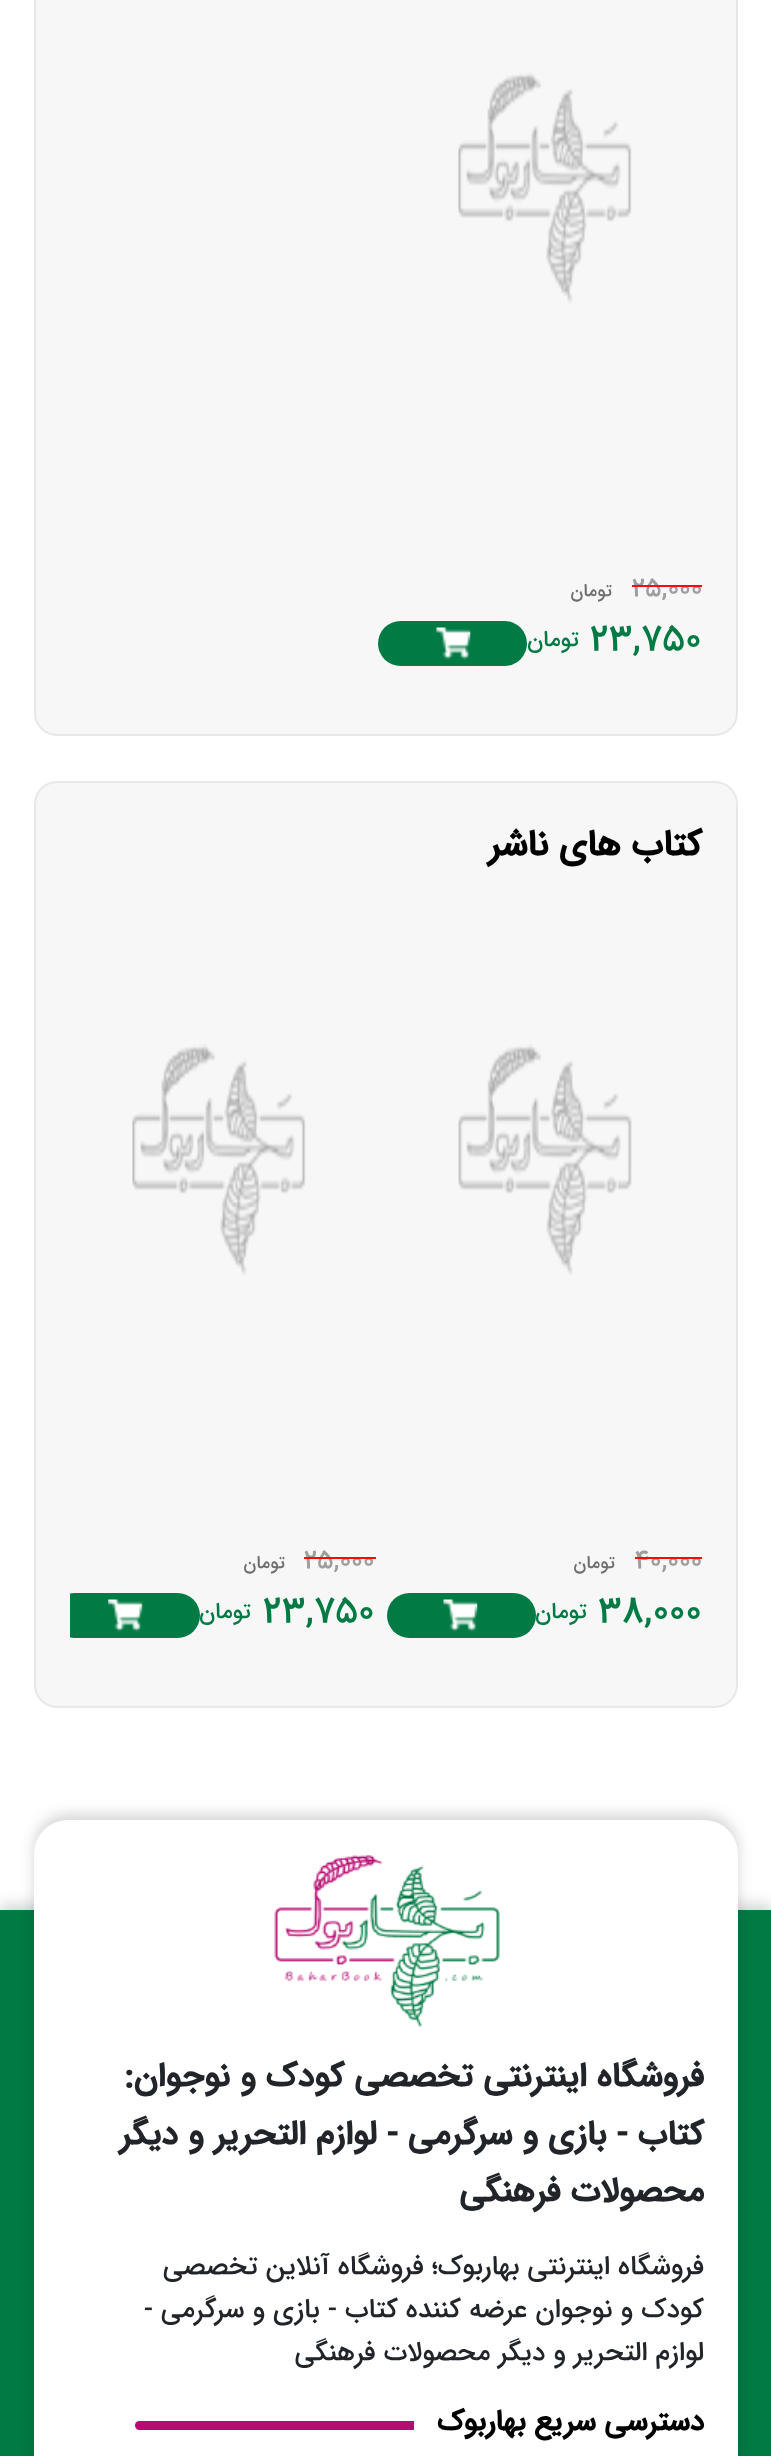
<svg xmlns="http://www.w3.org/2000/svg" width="771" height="2456">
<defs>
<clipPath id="clip1"><rect x="70" y="929" width="632" height="709"/></clipPath>
</defs>
<rect width="100%" height="100%" fill="#fff"/>
<rect x="35" y="-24" width="702" height="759" rx="22" fill="#f7f7f7" stroke="#e8e8e8" stroke-width="2"/>
<image x="458" y="72" width="174" height="232" href="media/1.png"/>
<text x="632" y="596" style="font-family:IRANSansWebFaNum;font-size:27px;font-weight:500;fill:#9e9e9e">25,000</text>
<rect x="632" y="585" width="70" height="2" fill="#ff0909"/>
<text x="612" y="596" style="font-family:IRANSansWebFaNum;font-size:18px;font-weight:500;direction:rtl;fill:#6e6e6e">تومان</text>
<text x="590" y="650" style="font-family:IRANSansWebFaNum;font-size:38px;font-weight:500;fill:#017a44">23,750</text>
<text x="579" y="646" style="font-family:IRANSansWebFaNum;font-size:22.5px;font-weight:500;direction:rtl;fill:#017a44">تومان</text>
<rect x="378" y="621" width="149" height="45" rx="22.5" fill="#017a44"/>
<image x="436" y="627" width="35" height="33" href="media/2.png"/>
<rect x="35" y="782" width="702" height="925" rx="22" fill="#f7f7f7" stroke="#e8e8e8" stroke-width="2"/>
<text x="702" y="855" style="font-family:IRANSansWebFaNum;font-size:36px;font-weight:bold;direction:rtl;fill:#000">کتاب های ناشر</text>
<image x="458" y="1044" width="174" height="231" href="media/3.png"/>
<text x="635" y="1568" style="font-family:IRANSansWebFaNum;font-size:27px;font-weight:500;fill:#9e9e9e">40,000</text>
<rect x="635" y="1557" width="67" height="2" fill="#ff0909"/>
<text x="615" y="1568" style="font-family:IRANSansWebFaNum;font-size:18px;font-weight:500;direction:rtl;fill:#6e6e6e">تومان</text>
<text x="598" y="1622" style="font-family:IRANSansWebFaNum;font-size:38px;font-weight:500;fill:#017a44">38,000</text>
<text x="587" y="1618" style="font-family:IRANSansWebFaNum;font-size:22.5px;font-weight:500;direction:rtl;fill:#017a44">تومان</text>
<rect x="387" y="1593" width="149" height="45" rx="22.5" fill="#017a44"/>
<image x="443" y="1599" width="35" height="33" href="media/4.png"/>
<image x="132" y="1044" width="174" height="232" href="media/5.png"/>
<text x="304" y="1568" style="font-family:IRANSansWebFaNum;font-size:27px;font-weight:500;fill:#9e9e9e">25,000</text>
<rect x="304" y="1557" width="72" height="2" fill="#ff0909"/>
<text x="285" y="1568" style="font-family:IRANSansWebFaNum;font-size:18px;font-weight:500;direction:rtl;fill:#6e6e6e">تومان</text>
<text x="263" y="1622" style="font-family:IRANSansWebFaNum;font-size:38px;font-weight:500;fill:#017a44">23,750</text>
<text x="251" y="1618" style="font-family:IRANSansWebFaNum;font-size:22.5px;font-weight:500;direction:rtl;fill:#017a44">تومان</text>
<g clip-path="url(#clip1)">
<rect x="52" y="1593" width="148" height="45" rx="22.5" fill="#017a44"/>
</g>
<image x="108" y="1599" width="35" height="33" href="media/6.png"/>
<rect y="1904" width="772" height="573" fill="#00000029" filter="blur(7px)"/>
<rect y="1910" width="771" height="546" fill="#017a44"/>
<rect x="34" y="1814" width="704" height="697" rx="34" fill="#00000029" filter="blur(7px)"/>
<rect x="34" y="1820" width="704" height="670" rx="34" fill="#fff"/>
<image x="274" y="1855" width="226" height="172" href="media/7.png"/>
<text x="704" y="2086" style="font-family:IRANSansWebFaNum;font-size:33.75px;font-weight:bold;direction:rtl;fill:#212529">فروشگاه اینترنتی تخصصی کودک و نوجوان:</text>
<text x="704" y="2144" style="font-family:IRANSansWebFaNum;font-size:33.75px;font-weight:bold;direction:rtl;fill:#212529">کتاب - بازی و سرگرمی - لوازم التحریر و دیگر</text>
<text x="704" y="2201" style="font-family:IRANSansWebFaNum;font-size:33.75px;font-weight:bold;direction:rtl;fill:#212529">محصولات فرهنگی</text>
<text x="704" y="2274" style="font-family:IRANSansWebFaNum;font-size:27px;font-weight:500;direction:rtl;fill:#212529">فروشگاه اینترنتی بهاربوک؛ فروشگاه آنلاین تخصصی</text>
<text x="704" y="2317" style="font-family:IRANSansWebFaNum;font-size:27px;font-weight:500;direction:rtl;fill:#212529">کودک و نوجوان عرضه کننده کتاب - بازی و سرگرمی -</text>
<text x="704" y="2360" style="font-family:IRANSansWebFaNum;font-size:27px;font-weight:500;direction:rtl;fill:#212529">لوازم التحریر و دیگر محصولات فرهنگی</text>
<rect x="135" y="2421" width="569" height="9" rx="4.5" fill="#b60c71"/>
<rect x="414" y="2421" width="290" height="9" fill="#fff"/>
<text x="704" y="2430" style="font-family:IRANSansWebFaNum;font-size:29.25px;font-weight:bold;direction:rtl;fill:#000">دسترسی سریع بهاربوک</text>
</svg>
